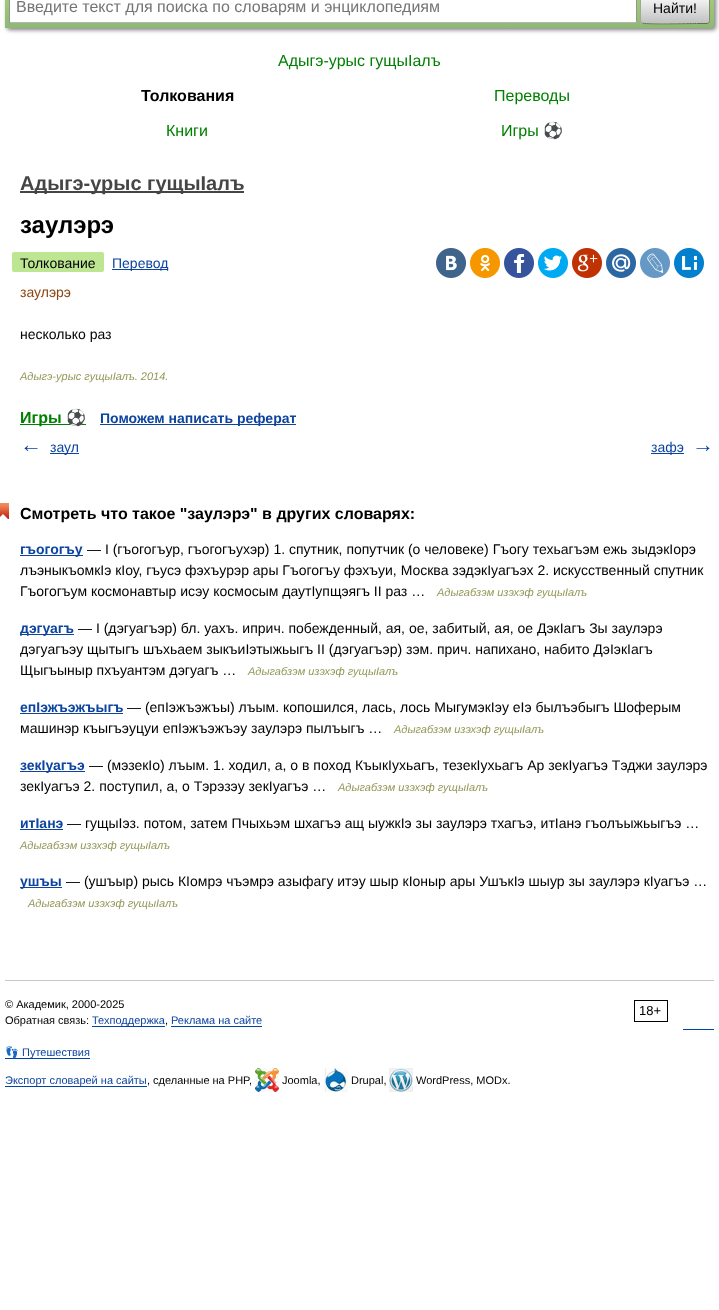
<svg xmlns="http://www.w3.org/2000/svg" width="719" height="1310">
<defs>
<linearGradient id="g1" gradientUnits="userSpaceOnUse" x1="360" y1="-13" x2="360" y2="28"><stop offset="0" stop-color="#abcf7e"/><stop offset="1" stop-color="#8eb874"/></linearGradient>
<clipPath id="clip1"><rect x="640" y="-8" width="70" height="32" rx="3"/></clipPath>
<linearGradient id="g2" gradientUnits="userSpaceOnUse" x1="675" y1="-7" x2="675" y2="23"><stop offset="0" stop-color="#fff"/><stop offset="1" stop-color="#c1c1c1"/></linearGradient>
<linearGradient id="g3" gradientUnits="userSpaceOnUse" x1="675" y1="23" x2="675" y2="53"><stop offset="0" stop-color="#fff"/><stop offset="1" stop-color="#c1c1c1"/></linearGradient>
</defs>
<rect width="100%" height="100%" fill="#fff"/>
<rect x="7" y="-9" width="709" height="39" rx="3" fill="#00000080" filter="blur(2px)"/>
<path d="M5-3h706c1.5 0 3 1.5 3 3v25c0 1.5-1.5 3-3 3h-706z" fill="url(#g1)"/>
<rect x="10" width="626" height="22" fill="#fff"/>
<rect x="636" width="1" height="23" fill="#949494"/>
<rect x="9" y="22" width="628" height="1" fill="#b4b4b4"/>
<rect x="9" width="1" height="23" fill="#949494"/>
<text x="16" y="12" style="font-family:Liberation Sans;font-size:16px;fill:#757575">Введите текст для поиска по словарям и энциклопедиям</text>
<g clip-path="url(#clip1)">
<rect x="640" width="70" height="23" fill="url(#g2)"/>
<rect x="640" y="23" width="70" height="1" fill="url(#g3)"/>
</g>
<path d="M709-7c0 .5 .5 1.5 .5 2v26c0 .5-.5 1.5-.5 2" fill="none" stroke="#7a8e69"/>
<path d="M709 23l-2 .5h-10.5c-6.5 0-53 1-55-.5h-.5" fill="none" stroke="#5d7250"/>
<path d="M641 23c0-.5-.5-1.5-.5-2v-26c0-.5 .5-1.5 .5-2" fill="none" stroke="#9aae89"/>
<text x="653" y="13" style="font-family:Liberation Sans;font-size:14px;fill:#000">Найти!</text>
<text x="278" y="66" style="font-family:Liberation Sans;font-size:16px;fill:#008000">Адыгэ-урыс гущыIалъ</text>
<text x="141" y="101" style="font-family:Liberation Sans;font-size:16px;font-weight:bold;fill:#000">Толкования</text>
<text x="494" y="101" style="font-family:Liberation Sans;font-size:16px;fill:#008000">Переводы</text>
<text x="166" y="136" style="font-family:Liberation Sans;font-size:16px;fill:#008000">Книги</text>
<text x="501" y="136" style="font-family:Liberation Sans;font-size:16px;fill:#008000">Игры</text>
<text x="543" y="136" style="font-family:Noto Color Emoji;font-size:16px;fill:#008000">⚽</text>
<rect x="20" y="191" width="224" height="2" fill="#454545"/>
<text x="20" y="190" style="font-family:Liberation Sans;font-size:20px;font-weight:bold;fill:#454545">Адыгэ-урыс гущыIалъ</text>
<text x="20" y="233" style="font-family:Liberation Sans;font-size:24px;font-weight:bold;fill:#000">заулэрэ</text>
<rect x="12" y="252" width="92" height="20" rx="2" fill="#bde693"/>
<text x="20" y="268" style="font-family:Liberation Sans;font-size:14px;fill:#000">Толкование</text>
<rect x="112" y="269" width="56" height="1" fill="#0d44a0"/>
<text x="112" y="268" style="font-family:Liberation Sans;font-size:14px;fill:#0d44a0">Перевод</text>
<image x="436" y="248" width="30" height="30" href="media/1.png"/>
<image x="470" y="248" width="30" height="30" href="media/2.png"/>
<image x="504" y="248" width="30" height="30" href="media/3.png"/>
<image x="538" y="248" width="30" height="30" href="media/4.png"/>
<image x="572" y="248" width="30" height="30" href="media/5.png"/>
<image x="606" y="248" width="30" height="30" href="media/6.png"/>
<image x="640" y="248" width="30" height="30" href="media/7.png"/>
<image x="674" y="248" width="30" height="30" href="media/8.png"/>
<text x="20" y="297" style="font-family:Liberation Sans;font-size:14px;fill:#8b4513">заулэрэ</text>
<text x="20" y="339" style="font-family:Liberation Sans;font-size:14px;fill:#000">несколько раз</text>
<text x="20" y="380" style="font-family:Liberation Sans;font-size:11px;font-style:italic;fill:#939756">Адыгэ-урыс гущыIалъ. 2014.</text>
<rect x="20" y="424" width="66" height="1" fill="#008000"/>
<text x="20" y="423" style="font-family:Liberation Sans;font-size:16px;font-weight:bold;fill:#008000">Игры</text>
<text x="66" y="423" style="font-family:Noto Color Emoji;font-size:16px;font-weight:bold;fill:#008000">⚽</text>
<rect x="100" y="424" width="196" height="1" fill="#0d44a0"/>
<text x="100" y="423" style="font-family:Liberation Sans;font-size:14px;font-weight:bold;fill:#0d44a0">Поможем написать реферат</text>
<text x="20" y="452" style="font-family:Liberation Sans;font-size:22px;font-weight:bold;fill:#0d44a0">←</text>
<rect x="50" y="453" width="29" height="1" fill="#0d44a0"/>
<text x="50" y="452" style="font-family:Liberation Sans;font-size:14px;fill:#0d44a0">заул</text>
<rect x="651" y="453" width="33" height="1" fill="#0d44a0"/>
<text x="651" y="452" style="font-family:Liberation Sans;font-size:14px;fill:#0d44a0">зафэ</text>
<text x="692" y="452" style="font-family:Liberation Sans;font-size:22px;font-weight:bold;fill:#0d44a0">→</text>
<image x="0" y="503" width="9" height="16" href="media/9.png"/>
<text x="20" y="519" style="font-family:Liberation Sans;font-size:16px;font-weight:bold;fill:#000">Смотреть что такое "заулэрэ" в других словарях:</text>
<rect x="20" y="555" width="63" height="1" fill="#0d44a0"/>
<text x="20" y="554" style="font-family:Liberation Sans;font-size:14px;font-weight:bold;fill:#0d44a0">гъогогъу</text>
<text x="87" y="554" style="font-family:Liberation Sans;font-size:14px;fill:#000">— I (гъогогъур, гъогогъухэр) 1. спутник, попутчик (о человеке) Гъогу техьагъэм ежь зыдэкIорэ</text>
<text x="20" y="575" style="font-family:Liberation Sans;font-size:14px;fill:#000">лъэныкъомкIэ кIоу, гъусэ фэхъурэр ары Гъогогъу фэхъуи, Москва зэдэкIуагъэх 2. искусственный спутник</text>
<text x="20" y="596" style="font-family:Liberation Sans;font-size:14px;fill:#000">Гъогогъум космонавтыр исэу космосым даутIупщэягъ II раз …</text>
<text x="437" y="596" style="font-family:Liberation Sans;font-size:11px;font-style:italic;fill:#939756">Адыгабзэм изэхэф гущыIалъ</text>
<rect x="20" y="634" width="54" height="1" fill="#0d44a0"/>
<text x="20" y="633" style="font-family:Liberation Sans;font-size:14px;font-weight:bold;fill:#0d44a0">дэгуагъ</text>
<text x="78" y="633" style="font-family:Liberation Sans;font-size:14px;fill:#000">— I (дэгуагъэр) бл. уахъ. иприч. побежденный, ая, ое, забитый, ая, ое ДэкIагъ Зы заулэрэ</text>
<text x="20" y="654" style="font-family:Liberation Sans;font-size:14px;fill:#000">дэгуагъэу щытыгъ шъхьаем зыкъиIэтыжьыгъ II (дэгуагъэр) зэм. прич. напихано, набито ДэIэкIагъ</text>
<text x="20" y="675" style="font-family:Liberation Sans;font-size:14px;fill:#000">Щыгъыныр пхъуантэм дэгуагъ …</text>
<text x="248" y="675" style="font-family:Liberation Sans;font-size:11px;font-style:italic;fill:#939756">Адыгабзэм изэхэф гущыIалъ</text>
<text x="20" y="712" style="font-family:Liberation Sans;font-size:14px;font-weight:bold;fill:#0d44a0">епIэжъэжъыгъ</text>
<rect x="20" y="713" width="103" height="1" fill="#0d44a0"/>
<text x="127" y="712" style="font-family:Liberation Sans;font-size:14px;fill:#000">— (епIэжъэжъы) лъым. копошился, лась, лось МыгумэкIэу еIэ былъэбыгъ Шоферым</text>
<text x="20" y="733" style="font-family:Liberation Sans;font-size:14px;fill:#000">машинэр къыгъэуцуи епIэжъэжъэу заулэрэ пылъыгъ …</text>
<text x="394" y="733" style="font-family:Liberation Sans;font-size:11px;font-style:italic;fill:#939756">Адыгабзэм изэхэф гущыIалъ</text>
<rect x="20" y="771" width="65" height="1" fill="#0d44a0"/>
<text x="20" y="770" style="font-family:Liberation Sans;font-size:14px;font-weight:bold;fill:#0d44a0">зекIуагъэ</text>
<text x="89" y="770" style="font-family:Liberation Sans;font-size:14px;fill:#000">— (мэзекIо) лъым. 1. ходил, а, о в поход КъыкIухьагъ, тезекIухьагъ Ар зекIуагъэ Тэджи заулэрэ</text>
<text x="20" y="791" style="font-family:Liberation Sans;font-size:14px;fill:#000">зекIуагъэ 2. поступил, а, о Тэрэзэу зекIуагъэ …</text>
<text x="338" y="791" style="font-family:Liberation Sans;font-size:11px;font-style:italic;fill:#939756">Адыгабзэм изэхэф гущыIалъ</text>
<text x="20" y="828" style="font-family:Liberation Sans;font-size:14px;font-weight:bold;fill:#0d44a0">итIанэ</text>
<rect x="20" y="829" width="43" height="1" fill="#0d44a0"/>
<text x="67" y="828" style="font-family:Liberation Sans;font-size:14px;fill:#000">— гущыIэз. потом, затем Пчыхьэм шхагъэ ащ ыужкIэ зы заулэрэ тхагъэ, итIанэ гъолъыжьыгъэ …</text>
<text x="20" y="849" style="font-family:Liberation Sans;font-size:11px;font-style:italic;fill:#939756">Адыгабзэм изэхэф гущыIалъ</text>
<rect x="20" y="887" width="42" height="1" fill="#0d44a0"/>
<text x="20" y="886" style="font-family:Liberation Sans;font-size:14px;font-weight:bold;fill:#0d44a0">ушъы</text>
<text x="66" y="886" style="font-family:Liberation Sans;font-size:14px;fill:#000">— (ушъыр) рысь КIомрэ чъэмрэ азыфагу итэу шыр кIоныр ары УшъкIэ шыур зы заулэрэ кIуагъэ …</text>
<text x="28" y="907" style="font-family:Liberation Sans;font-size:11px;font-style:italic;fill:#939756">Адыгабзэм изэхэф гущыIалъ</text>
<rect x="5" y="980" width="709" height="1" fill="#c7c7c7"/>
<text x="5" y="1008" style="font-family:Liberation Sans;font-size:11px;fill:#000">© Академик, 2000-2025</text>
<rect x="634.5" y="1000.5" width="33" height="21" fill="none" stroke="#000"/>
<text x="639" y="1015" style="font-family:Liberation Sans;font-size:13px;fill:#000">18+</text>
<text x="5" y="1024" style="font-family:Liberation Sans;font-size:11px;fill:#000">Обратная связь:</text>
<rect x="92" y="1026" width="73" height="1" fill="#04a"/>
<text x="92" y="1024" style="font-family:Liberation Sans;font-size:11px;fill:#0d44a0">Техподдержка</text>
<text x="165" y="1024" style="font-family:Liberation Sans;font-size:11px;fill:#000">,</text>
<text x="171" y="1024" style="font-family:Liberation Sans;font-size:11px;fill:#0d44a0">Реклама на сайте</text>
<rect x="171" y="1026" width="91" height="1" fill="#04a"/>
<rect x="683" y="1029" width="31" height="1" fill="#04a"/>
<rect x="5" y="1058" width="85" height="1" fill="#04a"/>
<text x="5" y="1056" style="font-family:Noto Color Emoji;font-size:11px;fill:#0d44a0">👣</text>
<text x="22" y="1056" style="font-family:Liberation Sans;font-size:11px;fill:#0d44a0">Путешествия</text>
<rect x="5" y="1086" width="142" height="1" fill="#04a"/>
<text x="5" y="1084" style="font-family:Liberation Sans;font-size:11px;fill:#0d44a0">Экспорт словарей на сайты</text>
<text x="147" y="1084" style="font-family:Liberation Sans;font-size:11px;fill:#000">, сделанные на PHP,</text>
<image x="255" y="1068" width="24" height="24" href="media/10.png"/>
<text x="282" y="1084" style="font-family:Liberation Sans;font-size:11px;fill:#000">Joomla,</text>
<image x="324" y="1068" width="24" height="24" href="media/11.png"/>
<text x="351" y="1084" style="font-family:Liberation Sans;font-size:11px;fill:#000">Drupal,</text>
<image x="389" y="1068" width="24" height="24" href="media/12.png"/>
<text x="416" y="1084" style="font-family:Liberation Sans;font-size:11px;fill:#000">WordPress, MODx.</text>
</svg>
